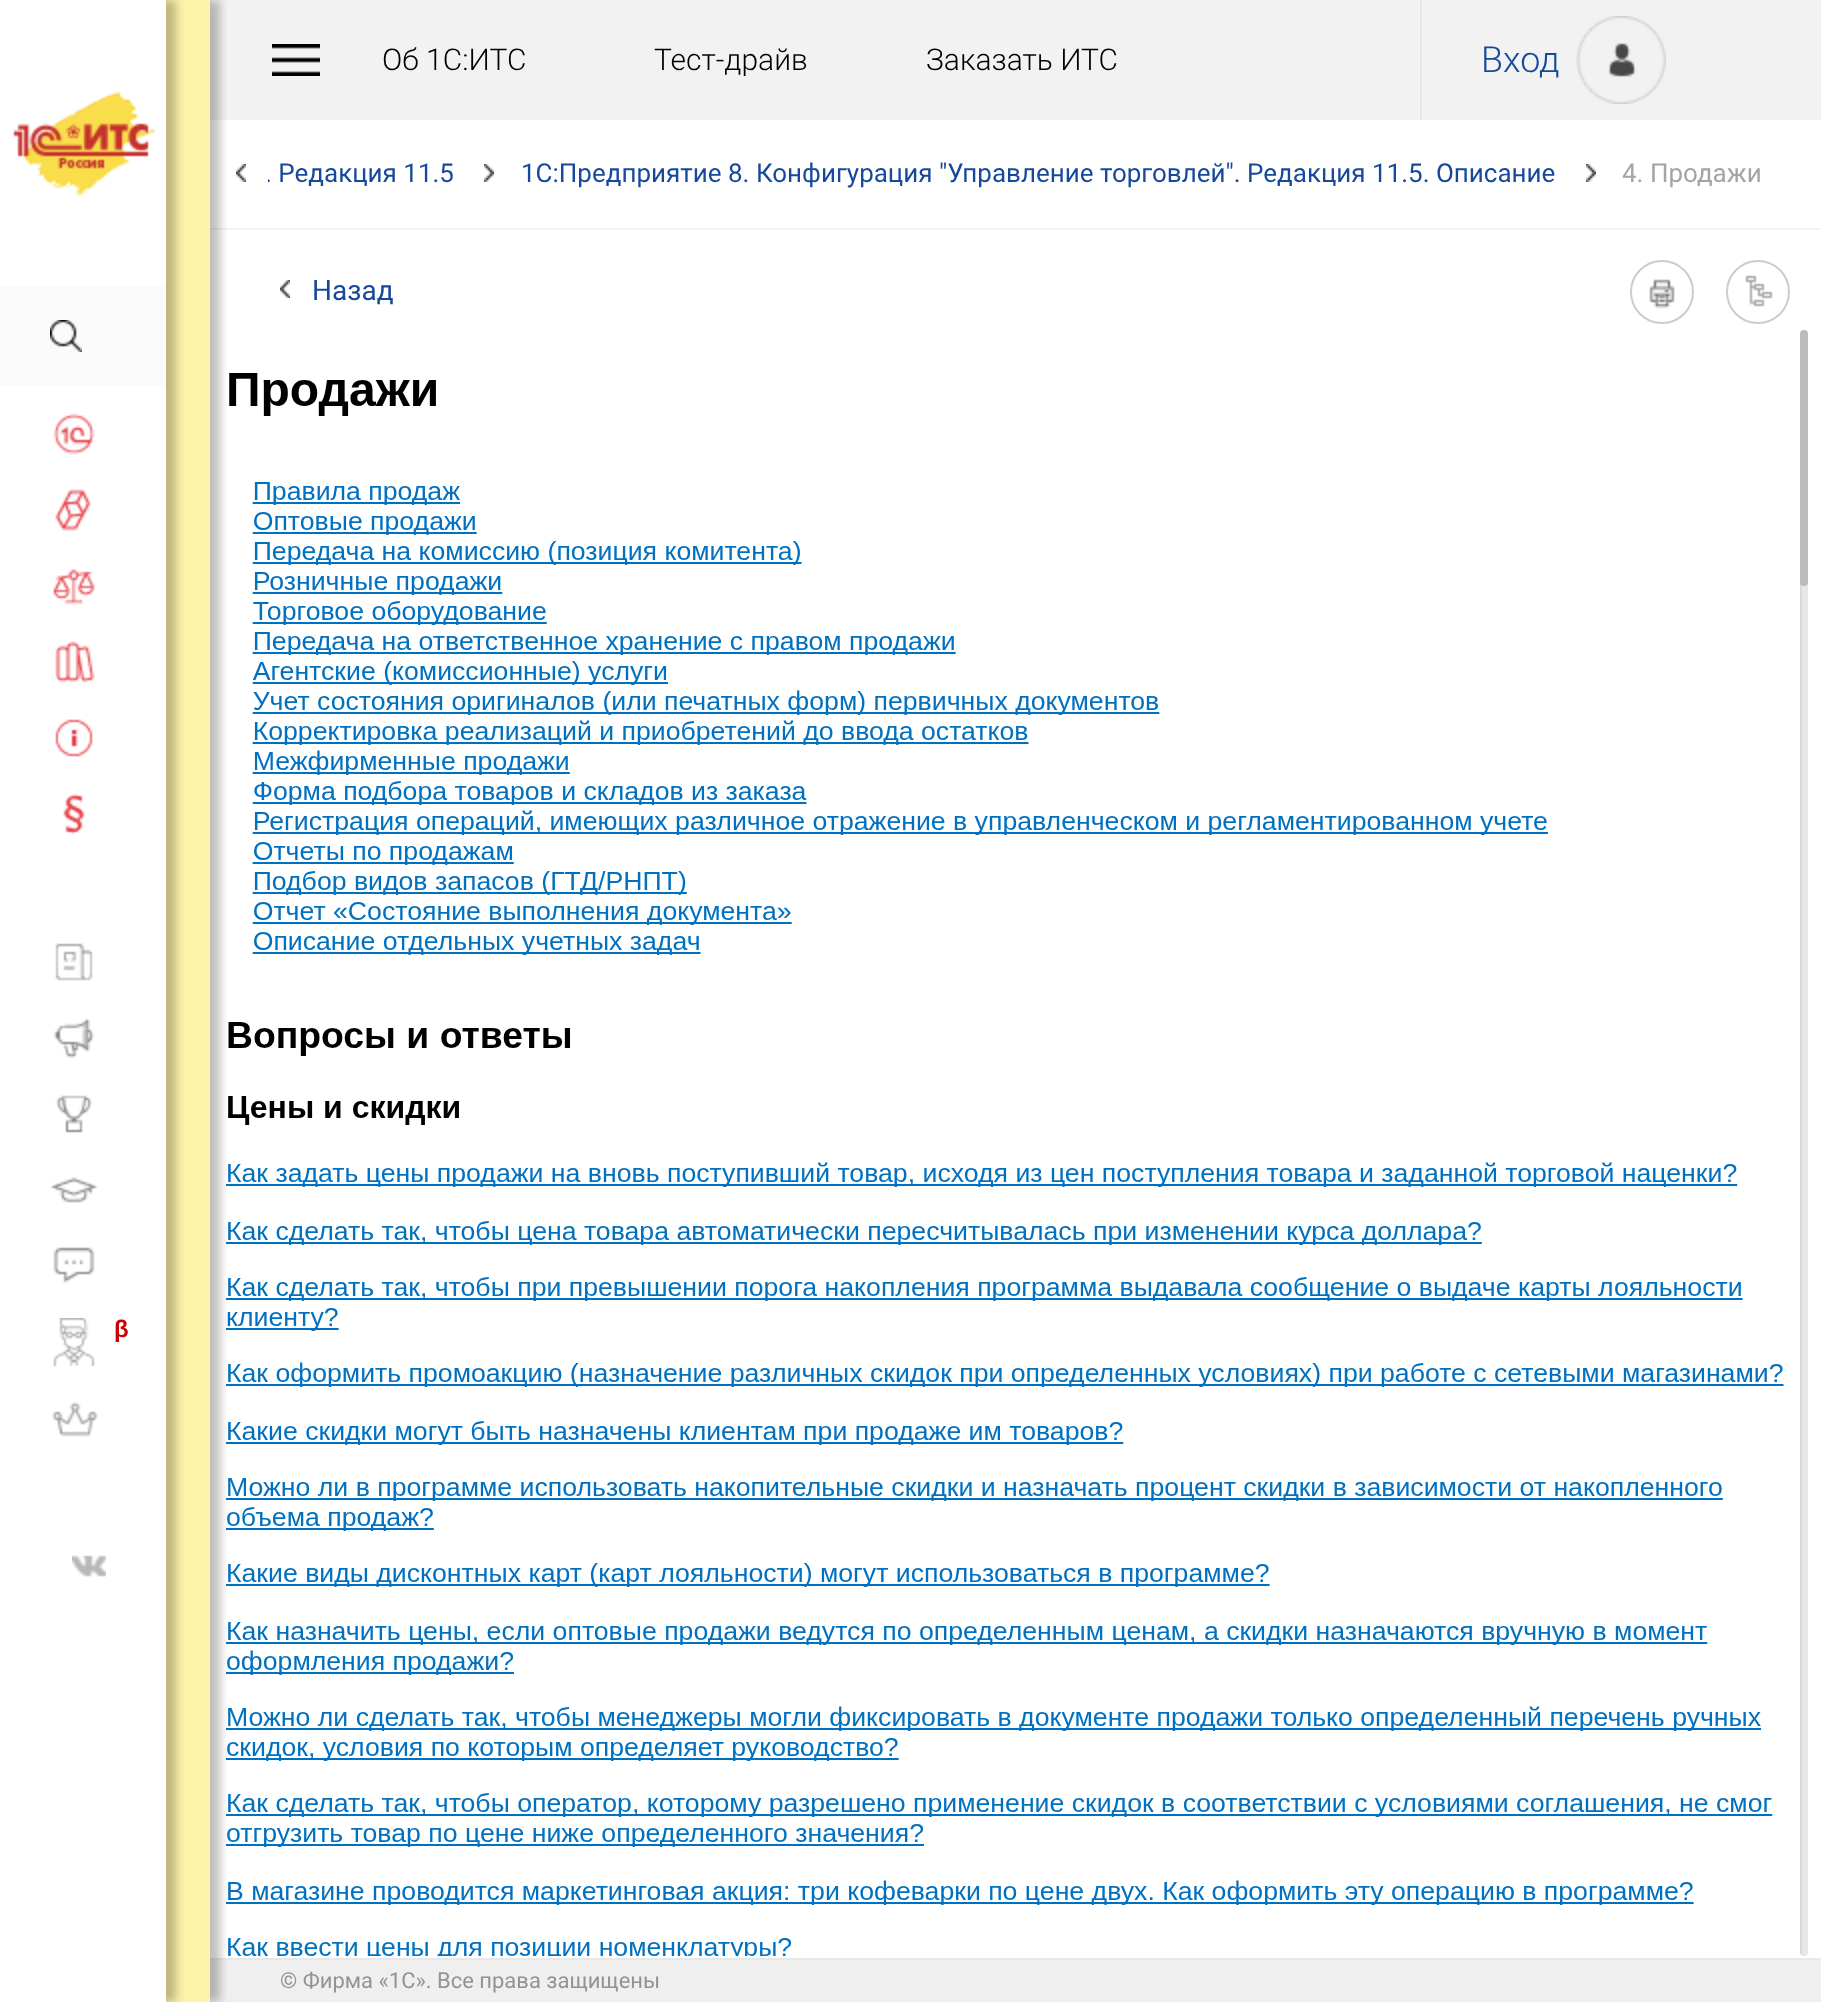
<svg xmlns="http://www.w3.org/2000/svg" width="1821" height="2002">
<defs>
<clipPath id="clip1"><rect x="268" y="120" width="1494" height="106"/></clipPath>
<clipPath id="clip2"><rect x="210" y="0" width="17" height="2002"/></clipPath>
</defs>
<rect width="100%" height="100%" fill="#fff"/>
<rect x="210" width="1611" height="120" fill="#f2f2f2"/>
<image x="272" y="44" width="48" height="32" href="media/1.png"/>
<text x="382" y="70" style="font-family:Roboto;font-size:30px;font-weight:300;fill:#000">Об 1С:ИТС</text>
<text x="654" y="70" style="font-family:Roboto;font-size:30px;font-weight:300;fill:#000">Тест-драйв</text>
<text x="926" y="70" style="font-family:Roboto;font-size:30px;font-weight:300;fill:#000">Заказать ИТС</text>
<rect x="1420" width="2" height="120" fill="#e6e6e6"/>
<text x="1481" y="72" style="font-family:Roboto;font-size:36px;font-weight:300;fill:#16489b">Вход</text>
<image x="1576" y="16" width="90" height="88" href="media/2.png"/>
<rect x="210" y="228" width="1611" height="2" fill="#f2f2f2"/>
<image x="236" y="164" width="10" height="18" href="media/3.png"/>
<g clip-path="url(#clip1)">
<text x="265" y="182" style="font-family:Roboto;font-size:26px;fill:#16489b">. Редакция 11.5</text>
</g>
<image x="484" y="164" width="10" height="18" href="media/4.png"/>
<text x="521" y="182" style="font-family:Roboto;font-size:26px;fill:#16489b">1С:Предприятие 8. Конфигурация "Управление торговлей". Редакция 11.5. Описание</text>
<image x="1586" y="164" width="10" height="18" href="media/4.png"/>
<text x="1622" y="182" style="font-family:Roboto;font-size:26px;fill:#a4a4a4">4. Продажи</text>
<image x="280" y="280" width="10" height="18" href="media/3.png"/>
<text x="312" y="300" style="font-family:Roboto;font-size:28px;fill:#16489b">Назад</text>
<image x="1649" y="279" width="26" height="30" href="media/5.png"/>
<circle cx="1662" cy="292" r="31" fill="none" stroke="#ccc" stroke-width="2"/>
<image x="1745" y="275" width="28" height="32" href="media/6.png"/>
<circle cx="1758" cy="292" r="31" fill="none" stroke="#ccc" stroke-width="2"/>
<image x="226" y="373" width="1558" height="1583" href="media/7.png"/>
<rect x="1800" y="330" width="8" height="1626" rx="4" fill="#e7e7e7"/>
<path d="M1804 330c-2 0-4 2-4 4v1619c1 2 3 3 5 3c-2-1-3-2-3-4v-1618c0-2 1-3 3-4z" fill="#d8d8d8"/>
<rect x="1800" y="330" width="8" height="256" rx="4" fill="#bbb"/>
<rect x="166" width="44" height="2002" fill="#fff3a9"/>
<rect x="10" width="166" height="2002" fill="#00000040" filter="blur(5px)"/>
<rect x="1" width="165" height="2002" fill="#fff"/>
<image x="13" y="91" width="144" height="106" href="media/8.png"/>
<rect y="286" width="166" height="100" fill="#fbfbfb"/>
<image x="50" y="320" width="32" height="32" href="media/9.png"/>
<image x="53" y="413" width="42" height="42" href="media/10.png"/>
<image x="55" y="489" width="36" height="42" href="media/11.png"/>
<image x="53" y="568" width="42" height="37" href="media/12.png"/>
<image x="55" y="641" width="40" height="42" href="media/13.png"/>
<image x="55" y="719" width="38" height="38" href="media/14.png"/>
<image x="63" y="793" width="22" height="42" href="media/15.png"/>
<rect x="210" y="1960" width="1611" height="42" fill="#efefef"/>
<rect x="210" y="1958" width="1611" height="2" fill="#e8e8e8"/>
<g clip-path="url(#clip2)">
<rect x="184" width="36" height="2002" fill="#00000040" filter="blur(5px)"/>
</g>
<image x="55" y="943" width="38" height="38" href="media/16.png"/>
<image x="53" y="1018" width="42" height="41" href="media/17.png"/>
<image x="55" y="1095" width="38" height="38" href="media/18.png"/>
<image x="50" y="1177" width="48" height="26" href="media/19.png"/>
<image x="53" y="1247" width="42" height="36" href="media/20.png"/>
<image x="53" y="1318" width="42" height="48" href="media/21.png"/>
<text x="114" y="1337" style="font-family:Liberation Sans;font-size:24px;font-weight:bold;fill:#c00">β</text>
<image x="51" y="1401" width="47" height="36" href="media/22.png"/>
<image x="72" y="1555" width="34" height="22" href="media/23.png"/>
<text x="280" y="1988" style="font-family:Roboto;font-size:22px;fill:#939393">© Фирма «1С». Все права защищены</text>
</svg>
